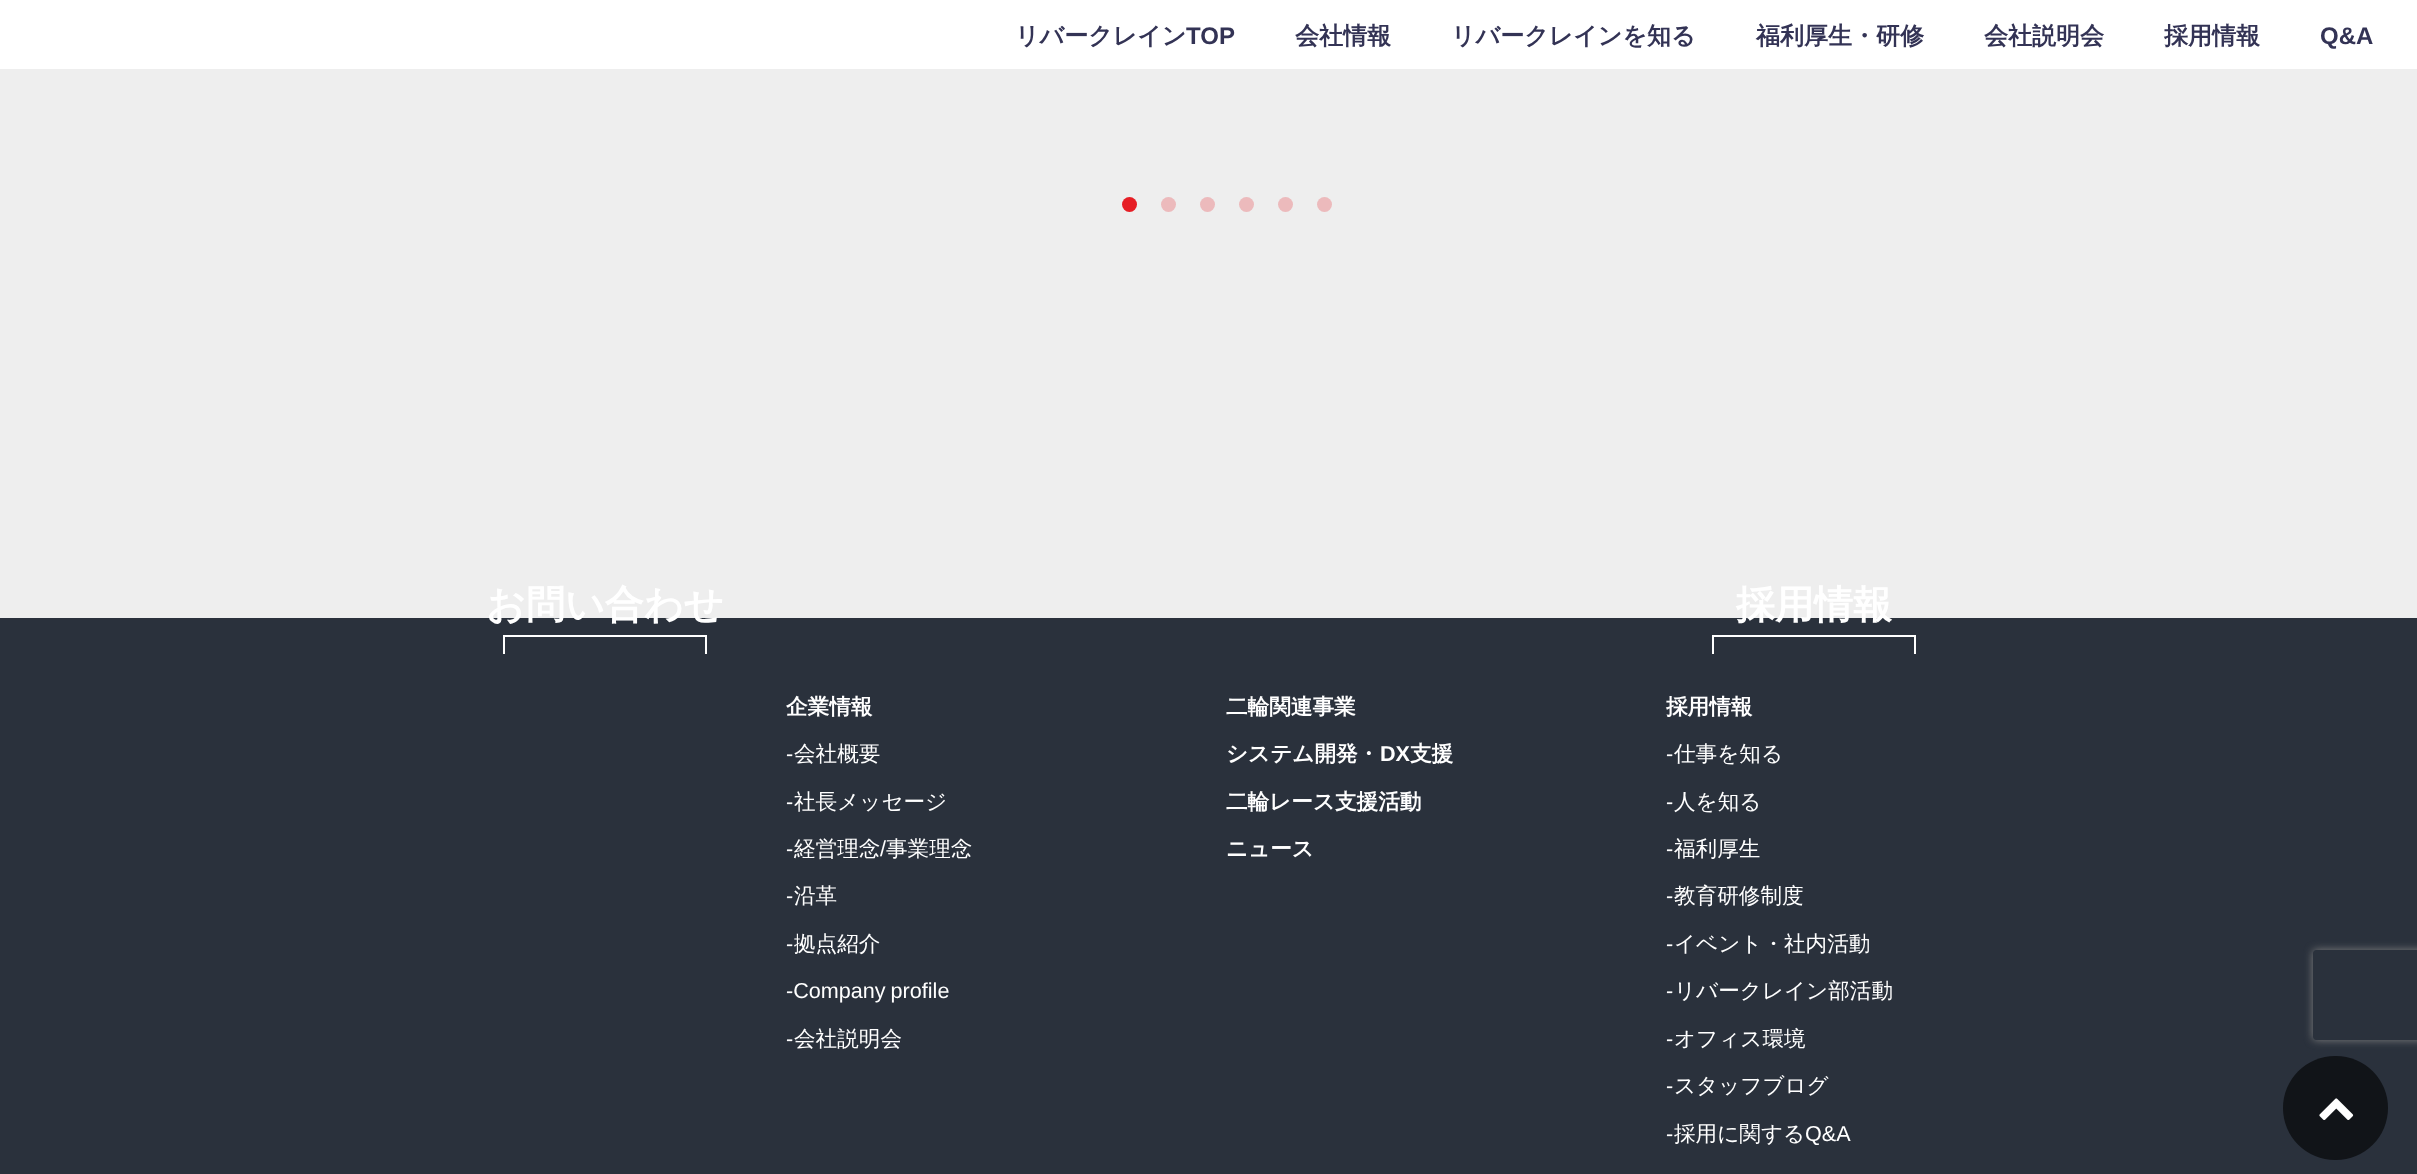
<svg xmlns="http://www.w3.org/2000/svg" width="2417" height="1174">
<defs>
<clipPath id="clip1"><path d="M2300 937h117v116h-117zm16 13h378c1.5 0 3 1.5 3 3v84c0 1.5-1.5 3-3 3h-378c-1.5 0-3-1.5-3-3v-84c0-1.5 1.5-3 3-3z" clip-rule="evenodd"/></clipPath>
</defs>
<rect width="100%" height="100%" fill="#eee"/>
<rect width="2417" height="69" fill="#fff"/>
<text x="1015" y="44" style="font-family:WenQuanYi Zen Hei;font-size:24px;font-weight:bold;fill:#335">リバークレイン</text>
<text x="1186" y="44" style="font-family:Liberation Sans;font-size:24px;font-weight:bold;fill:#335">TOP</text>
<text x="1295" y="44" style="font-family:WenQuanYi Zen Hei;font-size:24px;font-weight:bold;fill:#335">会社情報</text>
<text x="1451" y="44" style="font-family:WenQuanYi Zen Hei;font-size:24px;font-weight:bold;fill:#335">リバークレインを知る</text>
<text x="1756" y="44" style="font-family:WenQuanYi Zen Hei;font-size:24px;font-weight:bold;fill:#335">福利厚生・研修</text>
<text x="1984" y="44" style="font-family:WenQuanYi Zen Hei;font-size:24px;font-weight:bold;fill:#335">会社説明会</text>
<text x="2164" y="44" style="font-family:WenQuanYi Zen Hei;font-size:24px;font-weight:bold;fill:#335">採用情報</text>
<text x="2320" y="44" style="font-family:Liberation Sans;font-size:24px;font-weight:bold;fill:#335">Q&amp;A</text>
<circle cx="1129.5" cy="204.5" r="7.5" fill="#e61e25"/>
<circle cx="1168.5" cy="204.5" r="7.5" fill="#ecbabc"/>
<circle cx="1207.5" cy="204.5" r="7.5" fill="#ecbabc"/>
<circle cx="1246.5" cy="204.5" r="7.5" fill="#ecbabc"/>
<circle cx="1285.5" cy="204.5" r="7.5" fill="#ecbabc"/>
<circle cx="1324.5" cy="204.5" r="7.5" fill="#ecbabc"/>
<rect y="618" width="2417" height="36" fill="#2a313c"/>
<text x="486" y="618" style="font-family:WenQuanYi Zen Hei;font-size:39px;font-weight:bold;fill:#fff">お問い合わせ</text>
<rect x="504" y="636" width="202" height="52" fill="none" stroke="#fff" stroke-width="2"/>
<text x="1736" y="618" style="font-family:WenQuanYi Zen Hei;font-size:39px;font-weight:bold;fill:#fff">採用情報</text>
<rect x="1713" y="636" width="202" height="52" fill="none" stroke="#fff" stroke-width="2"/>
<rect y="654" width="2417" height="520" fill="#2a313c"/>
<text x="786" y="714" style="font-family:WenQuanYi Zen Hei;font-size:21.6px;font-weight:bold;fill:#fff">企業情報</text>
<text x="786" y="761" style="font-family:Liberation Sans;font-size:21.6px;fill:#fff">-</text>
<text x="794" y="761" style="font-family:WenQuanYi Zen Hei;font-size:21.6px;font-weight:500;fill:#fff">会社概要</text>
<text x="786" y="809" style="font-family:Liberation Sans;font-size:21.6px;fill:#fff">-</text>
<text x="794" y="809" style="font-family:WenQuanYi Zen Hei;font-size:21.6px;font-weight:500;fill:#fff">社長メッセージ</text>
<text x="786" y="856" style="font-family:Liberation Sans;font-size:21.6px;fill:#fff">-</text>
<text x="794" y="856" style="font-family:WenQuanYi Zen Hei;font-size:21.6px;font-weight:500;fill:#fff">経営理念</text>
<text x="880" y="856" style="font-family:Liberation Sans;font-size:21.6px;fill:#fff">/</text>
<text x="886" y="856" style="font-family:WenQuanYi Zen Hei;font-size:21.6px;font-weight:500;fill:#fff">事業理念</text>
<text x="786" y="903" style="font-family:Liberation Sans;font-size:21.6px;fill:#fff">-</text>
<text x="794" y="903" style="font-family:WenQuanYi Zen Hei;font-size:21.6px;font-weight:500;fill:#fff">沿革</text>
<text x="786" y="951" style="font-family:Liberation Sans;font-size:21.6px;fill:#fff">-</text>
<text x="794" y="951" style="font-family:WenQuanYi Zen Hei;font-size:21.6px;font-weight:500;fill:#fff">拠点紹介</text>
<text x="786" y="998" word-spacing="-1" style="font-family:Liberation Sans;font-size:21.6px;fill:#fff">-Company profile</text>
<text x="786" y="1046" style="font-family:Liberation Sans;font-size:21.6px;fill:#fff">-</text>
<text x="794" y="1046" style="font-family:WenQuanYi Zen Hei;font-size:21.6px;font-weight:500;fill:#fff">会社説明会</text>
<text x="1226" y="714" style="font-family:WenQuanYi Zen Hei;font-size:21.6px;font-weight:bold;fill:#fff">二輪関連事業</text>
<text x="1226" y="761" style="font-family:WenQuanYi Zen Hei;font-size:21.6px;font-weight:bold;fill:#fff">システム開発・</text>
<text x="1380" y="761" style="font-family:Liberation Sans;font-size:21.6px;font-weight:bold;fill:#fff">DX</text>
<text x="1410" y="761" style="font-family:WenQuanYi Zen Hei;font-size:21.6px;font-weight:bold;fill:#fff">支援</text>
<text x="1226" y="809" style="font-family:WenQuanYi Zen Hei;font-size:21.6px;font-weight:bold;fill:#fff">二輪レース支援活動</text>
<text x="1226" y="856" style="font-family:WenQuanYi Zen Hei;font-size:21.6px;font-weight:bold;fill:#fff">ニュース</text>
<text x="1666" y="714" style="font-family:WenQuanYi Zen Hei;font-size:21.6px;font-weight:bold;fill:#fff">採用情報</text>
<text x="1666" y="761" style="font-family:Liberation Sans;font-size:21.6px;fill:#fff">-</text>
<text x="1674" y="761" style="font-family:WenQuanYi Zen Hei;font-size:21.6px;font-weight:500;fill:#fff">仕事を知る</text>
<text x="1666" y="809" style="font-family:Liberation Sans;font-size:21.6px;fill:#fff">-</text>
<text x="1674" y="809" style="font-family:WenQuanYi Zen Hei;font-size:21.6px;font-weight:500;fill:#fff">人を知る</text>
<text x="1666" y="856" style="font-family:Liberation Sans;font-size:21.6px;fill:#fff">-</text>
<text x="1674" y="856" style="font-family:WenQuanYi Zen Hei;font-size:21.6px;font-weight:500;fill:#fff">福利厚生</text>
<text x="1666" y="903" style="font-family:Liberation Sans;font-size:21.6px;fill:#fff">-</text>
<text x="1674" y="903" style="font-family:WenQuanYi Zen Hei;font-size:21.6px;font-weight:500;fill:#fff">教育研修制度</text>
<text x="1666" y="951" style="font-family:Liberation Sans;font-size:21.6px;fill:#fff">-</text>
<text x="1674" y="951" style="font-family:WenQuanYi Zen Hei;font-size:21.6px;font-weight:500;fill:#fff">イベント・社内活動</text>
<text x="1666" y="998" style="font-family:Liberation Sans;font-size:21.6px;fill:#fff">-</text>
<text x="1674" y="998" style="font-family:WenQuanYi Zen Hei;font-size:21.6px;font-weight:500;fill:#fff">リバークレイン部活動</text>
<text x="1666" y="1046" style="font-family:Liberation Sans;font-size:21.6px;fill:#fff">-</text>
<text x="1674" y="1046" style="font-family:WenQuanYi Zen Hei;font-size:21.6px;font-weight:500;fill:#fff">オフィス環境</text>
<text x="1666" y="1093" style="font-family:Liberation Sans;font-size:21.6px;fill:#fff">-</text>
<text x="1674" y="1093" style="font-family:WenQuanYi Zen Hei;font-size:21.6px;font-weight:500;fill:#fff">スタッフブログ</text>
<text x="1666" y="1141" style="font-family:Liberation Sans;font-size:21.6px;fill:#fff">-</text>
<text x="1674" y="1141" style="font-family:WenQuanYi Zen Hei;font-size:21.6px;font-weight:500;fill:#fff">採用に関する</text>
<text x="1805" y="1141" style="font-family:Liberation Sans;font-size:21.6px;fill:#fff">Q&amp;A</text>
<g clip-path="url(#clip1)">
<rect x="2313" y="950" width="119" height="90" rx="3" fill="#808080" filter="blur(4px)"/>
</g>
<rect x="2283" y="1056" width="105" height="104" rx="52" fill="#111418"/>
<image x="2319" y="1098" width="35" height="22" href="media/1.png"/>
</svg>
